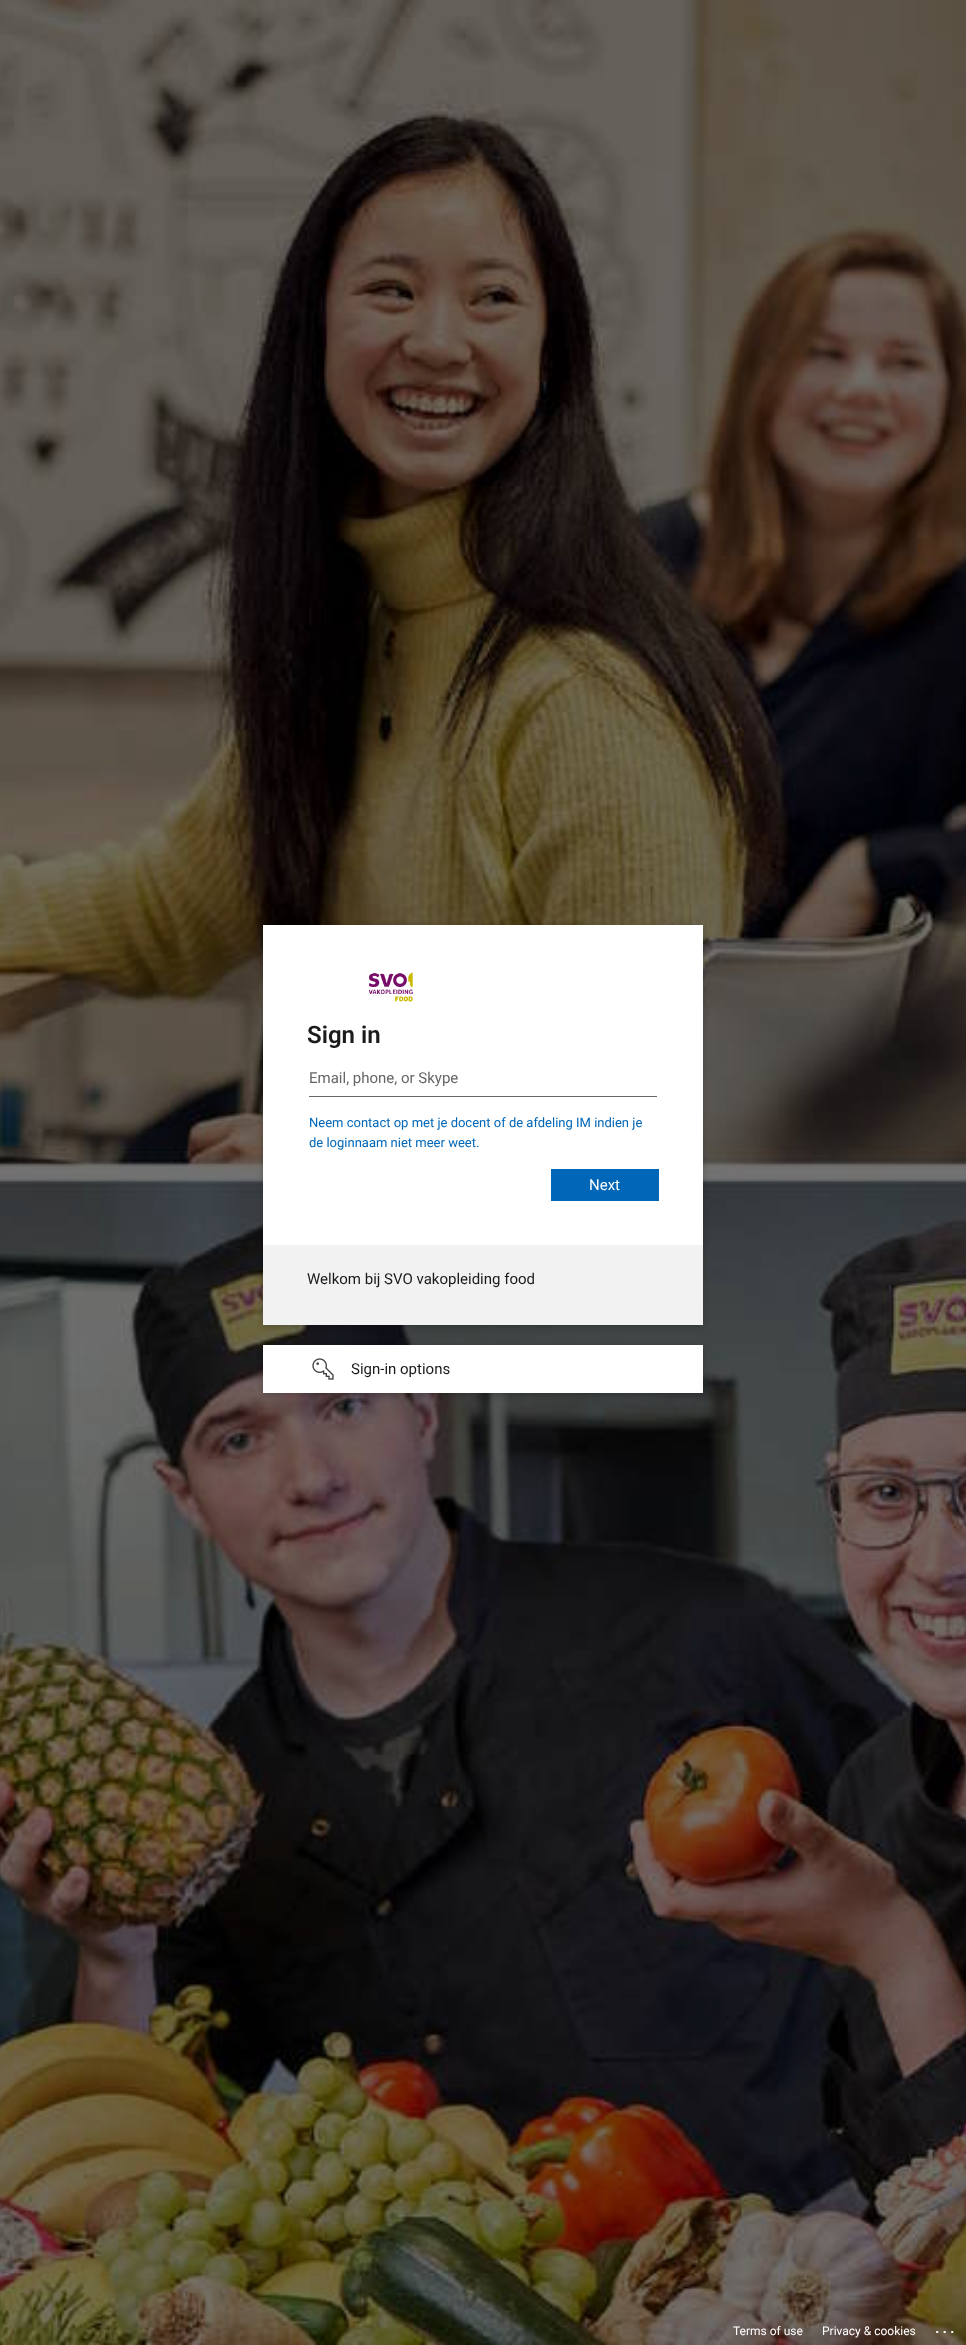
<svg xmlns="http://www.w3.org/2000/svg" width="966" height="2345">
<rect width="100%" height="100%" fill="#fff"/>
<image x="0" y="0" width="966" height="2345" href="media/1.png"/>
<rect x="263" y="927" width="440" height="400" fill="#00000033" filter="blur(3px)"/>
<rect x="263" y="925" width="440" height="320" fill="#fff"/>
<image x="369" y="972" width="44" height="30" href="media/2.png"/>
<text x="307" y="1043" style="font-family:Roboto;font-size:24px;font-weight:600;fill:#1b1b1b">Sign in</text>
<rect x="309" y="1096" width="348" height="1" fill="#666"/>
<text x="309" y="1083" style="font-family:Roboto;font-size:15px;fill:#666">Email, phone, or Skype</text>
<text x="309" y="1127" style="font-family:Roboto;font-size:13px;fill:#0067b8">Neem contact op met je docent of de afdeling IM indien je</text>
<text x="309" y="1147" style="font-family:Roboto;font-size:13px;fill:#0067b8">de loginnaam niet meer weet.</text>
<rect x="551" y="1169" width="108" height="32" fill="#0067b8"/>
<text x="589" y="1190" style="font-family:Roboto;font-size:15px;fill:#fff">Next</text>
<rect x="263" y="1245" width="440" height="80" fill="#f2f2f2"/>
<text x="307" y="1284" style="font-family:Roboto;font-size:15px;fill:#1b1b1b">Welkom bij SVO vakopleiding food</text>
<rect x="263" y="1347" width="440" height="48" fill="#00000033" filter="blur(3px)"/>
<rect x="263" y="1345" width="440" height="48" fill="#fff"/>
<image x="312" y="1358" width="22" height="22" href="media/3.png"/>
<text x="351" y="1374" style="font-family:Roboto;font-size:15px;fill:#1b1b1b">Sign-in options</text>
<text x="733" y="2335" style="font-family:Roboto;font-size:12px;fill:#fff">Terms of use</text>
<text x="822" y="2335" style="font-family:Roboto;font-size:12px;fill:#fff">Privacy &amp; cookies</text>
<text x="935" y="2333" style="font-family:Roboto;font-size:16px;font-weight:600;letter-spacing:3px;fill:#fff">...</text>
</svg>
